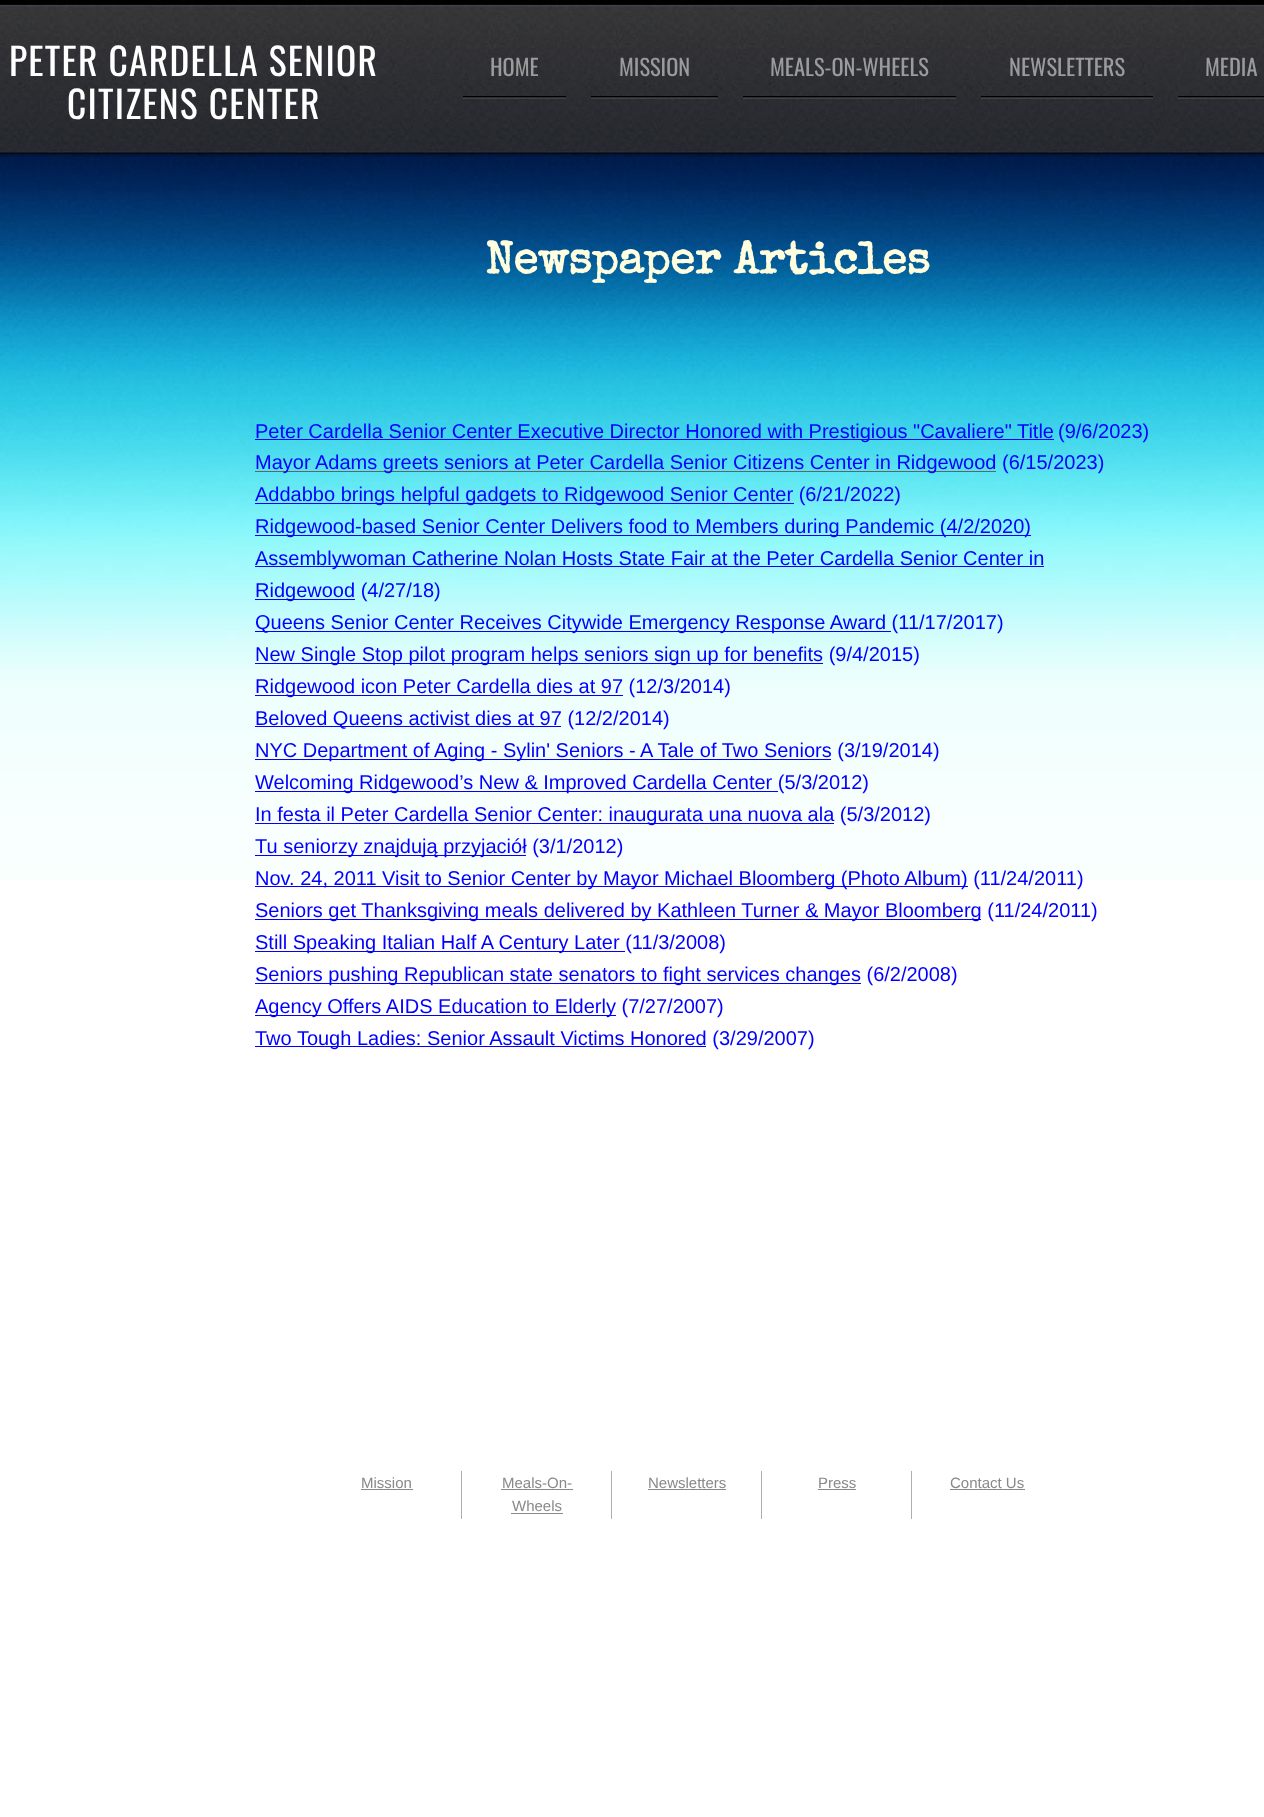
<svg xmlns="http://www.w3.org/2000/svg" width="1264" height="1817">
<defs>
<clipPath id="clip1"><path d="M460 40h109v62h-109zm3 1h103v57h-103z" clip-rule="evenodd"/></clipPath>
<clipPath id="clip2"><path d="M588 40h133v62h-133zm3 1h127v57h-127z" clip-rule="evenodd"/></clipPath>
<clipPath id="clip3"><path d="M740 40h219v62h-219zm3 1h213v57h-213z" clip-rule="evenodd"/></clipPath>
<clipPath id="clip4"><path d="M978 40h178v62h-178zm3 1h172v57h-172z" clip-rule="evenodd"/></clipPath>
<clipPath id="clip5"><path d="M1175 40h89v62h-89zm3 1h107v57h-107z" clip-rule="evenodd"/></clipPath>
</defs>
<rect width="100%" height="100%" fill="#fff"/>
<image x="0" y="0" width="1264" height="880" href="media/1.png"/>
<text x="9" y="76" style="font-family:Oswald;font-size:37.5px;letter-spacing:1.25px;fill:#fff">PETER CARDELLA SENIOR</text>
<text x="67" y="119" style="font-family:Oswald;font-size:37.5px;letter-spacing:1.25px;fill:#fff">CITIZENS CENTER</text>
<g clip-path="url(#clip1)">
<rect x="463" y="43" width="103" height="56" fill="#ffffff1a" filter="blur(0.5px)"/>
</g>
<rect x="463" y="96" width="103" height="1" fill="#000"/>
<text x="490" y="76" style="font-family:Oswald;font-size:22.5px;fill:#9b9b9b">HOME</text>
<g clip-path="url(#clip2)">
<rect x="591" y="43" width="127" height="56" fill="#ffffff1a" filter="blur(0.5px)"/>
</g>
<rect x="591" y="96" width="127" height="1" fill="#000"/>
<text x="619" y="76" style="font-family:Oswald;font-size:22.5px;fill:#9b9b9b">MISSION</text>
<g clip-path="url(#clip3)">
<rect x="743" y="43" width="213" height="56" fill="#ffffff1a" filter="blur(0.5px)"/>
</g>
<rect x="743" y="96" width="213" height="1" fill="#000"/>
<text x="770" y="76" style="font-family:Oswald;font-size:22.5px;fill:#9b9b9b">MEALS-ON-WHEELS</text>
<g clip-path="url(#clip4)">
<rect x="981" y="43" width="172" height="56" fill="#ffffff1a" filter="blur(0.5px)"/>
</g>
<rect x="981" y="96" width="172" height="1" fill="#000"/>
<text x="1009" y="76" style="font-family:Oswald;font-size:22.5px;fill:#9b9b9b">NEWSLETTERS</text>
<g clip-path="url(#clip5)">
<rect x="1178" y="43" width="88" height="56" fill="#ffffff1a" filter="blur(0.5px)"/>
</g>
<rect x="1178" y="96" width="86" height="1" fill="#000"/>
<text x="1205" y="76" style="font-family:Oswald;font-size:22.5px;fill:#9b9b9b">MEDIA</text>
<text x="485" y="273" style="font-family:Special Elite;font-size:45px;font-weight:bold;fill:#ffffe0">Newspaper Articles</text>
<rect x="255" y="439" width="799" height="1" fill="#00f"/>
<text x="255" y="438" style="font-family:Liberation Sans;font-size:20px;fill:#00f">Peter Cardella Senior Center Executive Director Honored with Prestigious "Cavaliere" Title</text>
<text x="1058" y="438" style="font-family:Liberation Sans;font-size:20px;fill:#00f">(9/6/2023)</text>
<rect x="255" y="471" width="741" height="1" fill="#646464"/>
<text x="255" y="469" style="font-family:Liberation Sans;font-size:20px;fill:#00f">Mayor Adams greets seniors at Peter Cardella Senior Citizens Center in Ridgewood (6/15/2023)</text>
<rect x="255" y="503" width="539" height="1" fill="#00f"/>
<text x="255" y="501" style="font-family:Liberation Sans;font-size:20px;fill:#00f">Addabbo brings helpful gadgets to Ridgewood Senior Center (6/21/2022)</text>
<rect x="255" y="535" width="776" height="1" fill="#00f"/>
<text x="255" y="533" style="font-family:Liberation Sans;font-size:20px;fill:#00f">Ridgewood-based Senior Center Delivers food to Members during Pandemic (4/2/2020)</text>
<rect x="255" y="566" width="789" height="1" fill="#00f"/>
<text x="255" y="565" style="font-family:Liberation Sans;font-size:20px;fill:#00f">Assemblywoman Catherine Nolan Hosts State Fair at the Peter Cardella Senior Center in</text>
<rect x="255" y="599" width="100" height="1" fill="#00f"/>
<text x="255" y="597" style="font-family:Liberation Sans;font-size:20px;fill:#00f">Ridgewood (4/27/18)</text>
<rect x="255" y="631" width="636" height="1" fill="#00f"/>
<text x="255" y="629" style="font-family:Liberation Sans;font-size:20px;fill:#00f">Queens Senior Center Receives Citywide Emergency Response Award (11/17/2017)</text>
<rect x="255" y="663" width="568" height="1" fill="#00f"/>
<text x="255" y="661" style="font-family:Liberation Sans;font-size:20px;fill:#00f">New Single Stop pilot program helps seniors sign up for benefits (9/4/2015)</text>
<rect x="255" y="695" width="368" height="1" fill="#00f"/>
<text x="255" y="693" style="font-family:Liberation Sans;font-size:20px;fill:#00f">Ridgewood icon Peter Cardella dies at 97 (12/3/2014)</text>
<rect x="255" y="726" width="306" height="1" fill="#00f"/>
<text x="255" y="725" style="font-family:Liberation Sans;font-size:20px;fill:#00f">Beloved Queens activist dies at 97 (12/2/2014)</text>
<rect x="255" y="759" width="576" height="1" fill="#00f"/>
<text x="255" y="757" style="font-family:Liberation Sans;font-size:20px;fill:#00f">NYC Department of Aging - Sylin' Seniors - A Tale of Two Seniors (3/19/2014)</text>
<rect x="255" y="791" width="523" height="1" fill="#00f"/>
<text x="255" y="789" style="font-family:Liberation Sans;font-size:20px;fill:#00f">Welcoming Ridgewood’s New &amp; Improved Cardella Center (5/3/2012)</text>
<rect x="255" y="823" width="579" height="1" fill="#00f"/>
<text x="255" y="821" style="font-family:Liberation Sans;font-size:20px;fill:#00f">In festa il Peter Cardella Senior Center: inaugurata una nuova ala (5/3/2012)</text>
<rect x="255" y="855" width="271" height="1" fill="#00f"/>
<text x="255" y="853" style="font-family:Liberation Sans;font-size:20px;fill:#00f">Tu seniorzy znajdują przyjaciół (3/1/2012)</text>
<rect x="255" y="886" width="713" height="1" fill="#00f"/>
<text x="255" y="885" style="font-family:Liberation Sans;font-size:20px;fill:#00f">Nov. 24, 2011 Visit to Senior Center by Mayor Michael Bloomberg (Photo Album) (11/24/2011)</text>
<rect x="255" y="919" width="726" height="1" fill="#00f"/>
<text x="255" y="917" style="font-family:Liberation Sans;font-size:20px;fill:#00f">Seniors get Thanksgiving meals delivered by Kathleen Turner &amp; Mayor Bloomberg (11/24/2011)</text>
<rect x="255" y="951" width="370" height="1" fill="#00f"/>
<text x="255" y="949" style="font-family:Liberation Sans;font-size:20px;fill:#00f">Still Speaking Italian Half A Century Later (11/3/2008)</text>
<rect x="255" y="983" width="606" height="1" fill="#00f"/>
<text x="255" y="981" style="font-family:Liberation Sans;font-size:20px;fill:#00f">Seniors pushing Republican state senators to fight services changes (6/2/2008)</text>
<rect x="255" y="1015" width="361" height="1" fill="#00f"/>
<text x="255" y="1013" style="font-family:Liberation Sans;font-size:20px;fill:#00f">Agency Offers AIDS Education to Elderly (7/27/2007)</text>
<rect x="255" y="1046" width="451" height="1" fill="#00f"/>
<text x="255" y="1045" style="font-family:Liberation Sans;font-size:20px;fill:#00f">Two Tough Ladies: Senior Assault Victims Honored (3/29/2007)</text>
<rect x="461" y="1471" width="1" height="48" fill="#aeaeae"/>
<text x="361" y="1488" style="font-family:Liberation Sans;font-size:15px;fill:#898989">Mission</text>
<rect x="361" y="1489" width="52" height="1" fill="#898989"/>
<rect x="611" y="1471" width="1" height="48" fill="#aeaeae"/>
<text x="502" y="1488" style="font-family:Liberation Sans;font-size:15px;fill:#898989">Meals-On-</text>
<rect x="501" y="1489" width="72" height="1" fill="#898989"/>
<text x="512" y="1511" style="font-family:Liberation Sans;font-size:15px;fill:#898989">Wheels</text>
<rect x="511" y="1513" width="52" height="1" fill="#898989"/>
<rect x="761" y="1471" width="1" height="48" fill="#aeaeae"/>
<text x="648" y="1488" style="font-family:Liberation Sans;font-size:15px;fill:#898989">Newsletters</text>
<rect x="648" y="1489" width="78" height="1" fill="#898989"/>
<rect x="911" y="1471" width="1" height="48" fill="#aeaeae"/>
<text x="818" y="1488" style="font-family:Liberation Sans;font-size:15px;fill:#898989">Press</text>
<rect x="818" y="1489" width="38" height="1" fill="#898989"/>
<text x="950" y="1488" style="font-family:Liberation Sans;font-size:15px;fill:#898989">Contact Us</text>
<rect x="950" y="1489" width="75" height="1" fill="#898989"/>
</svg>
